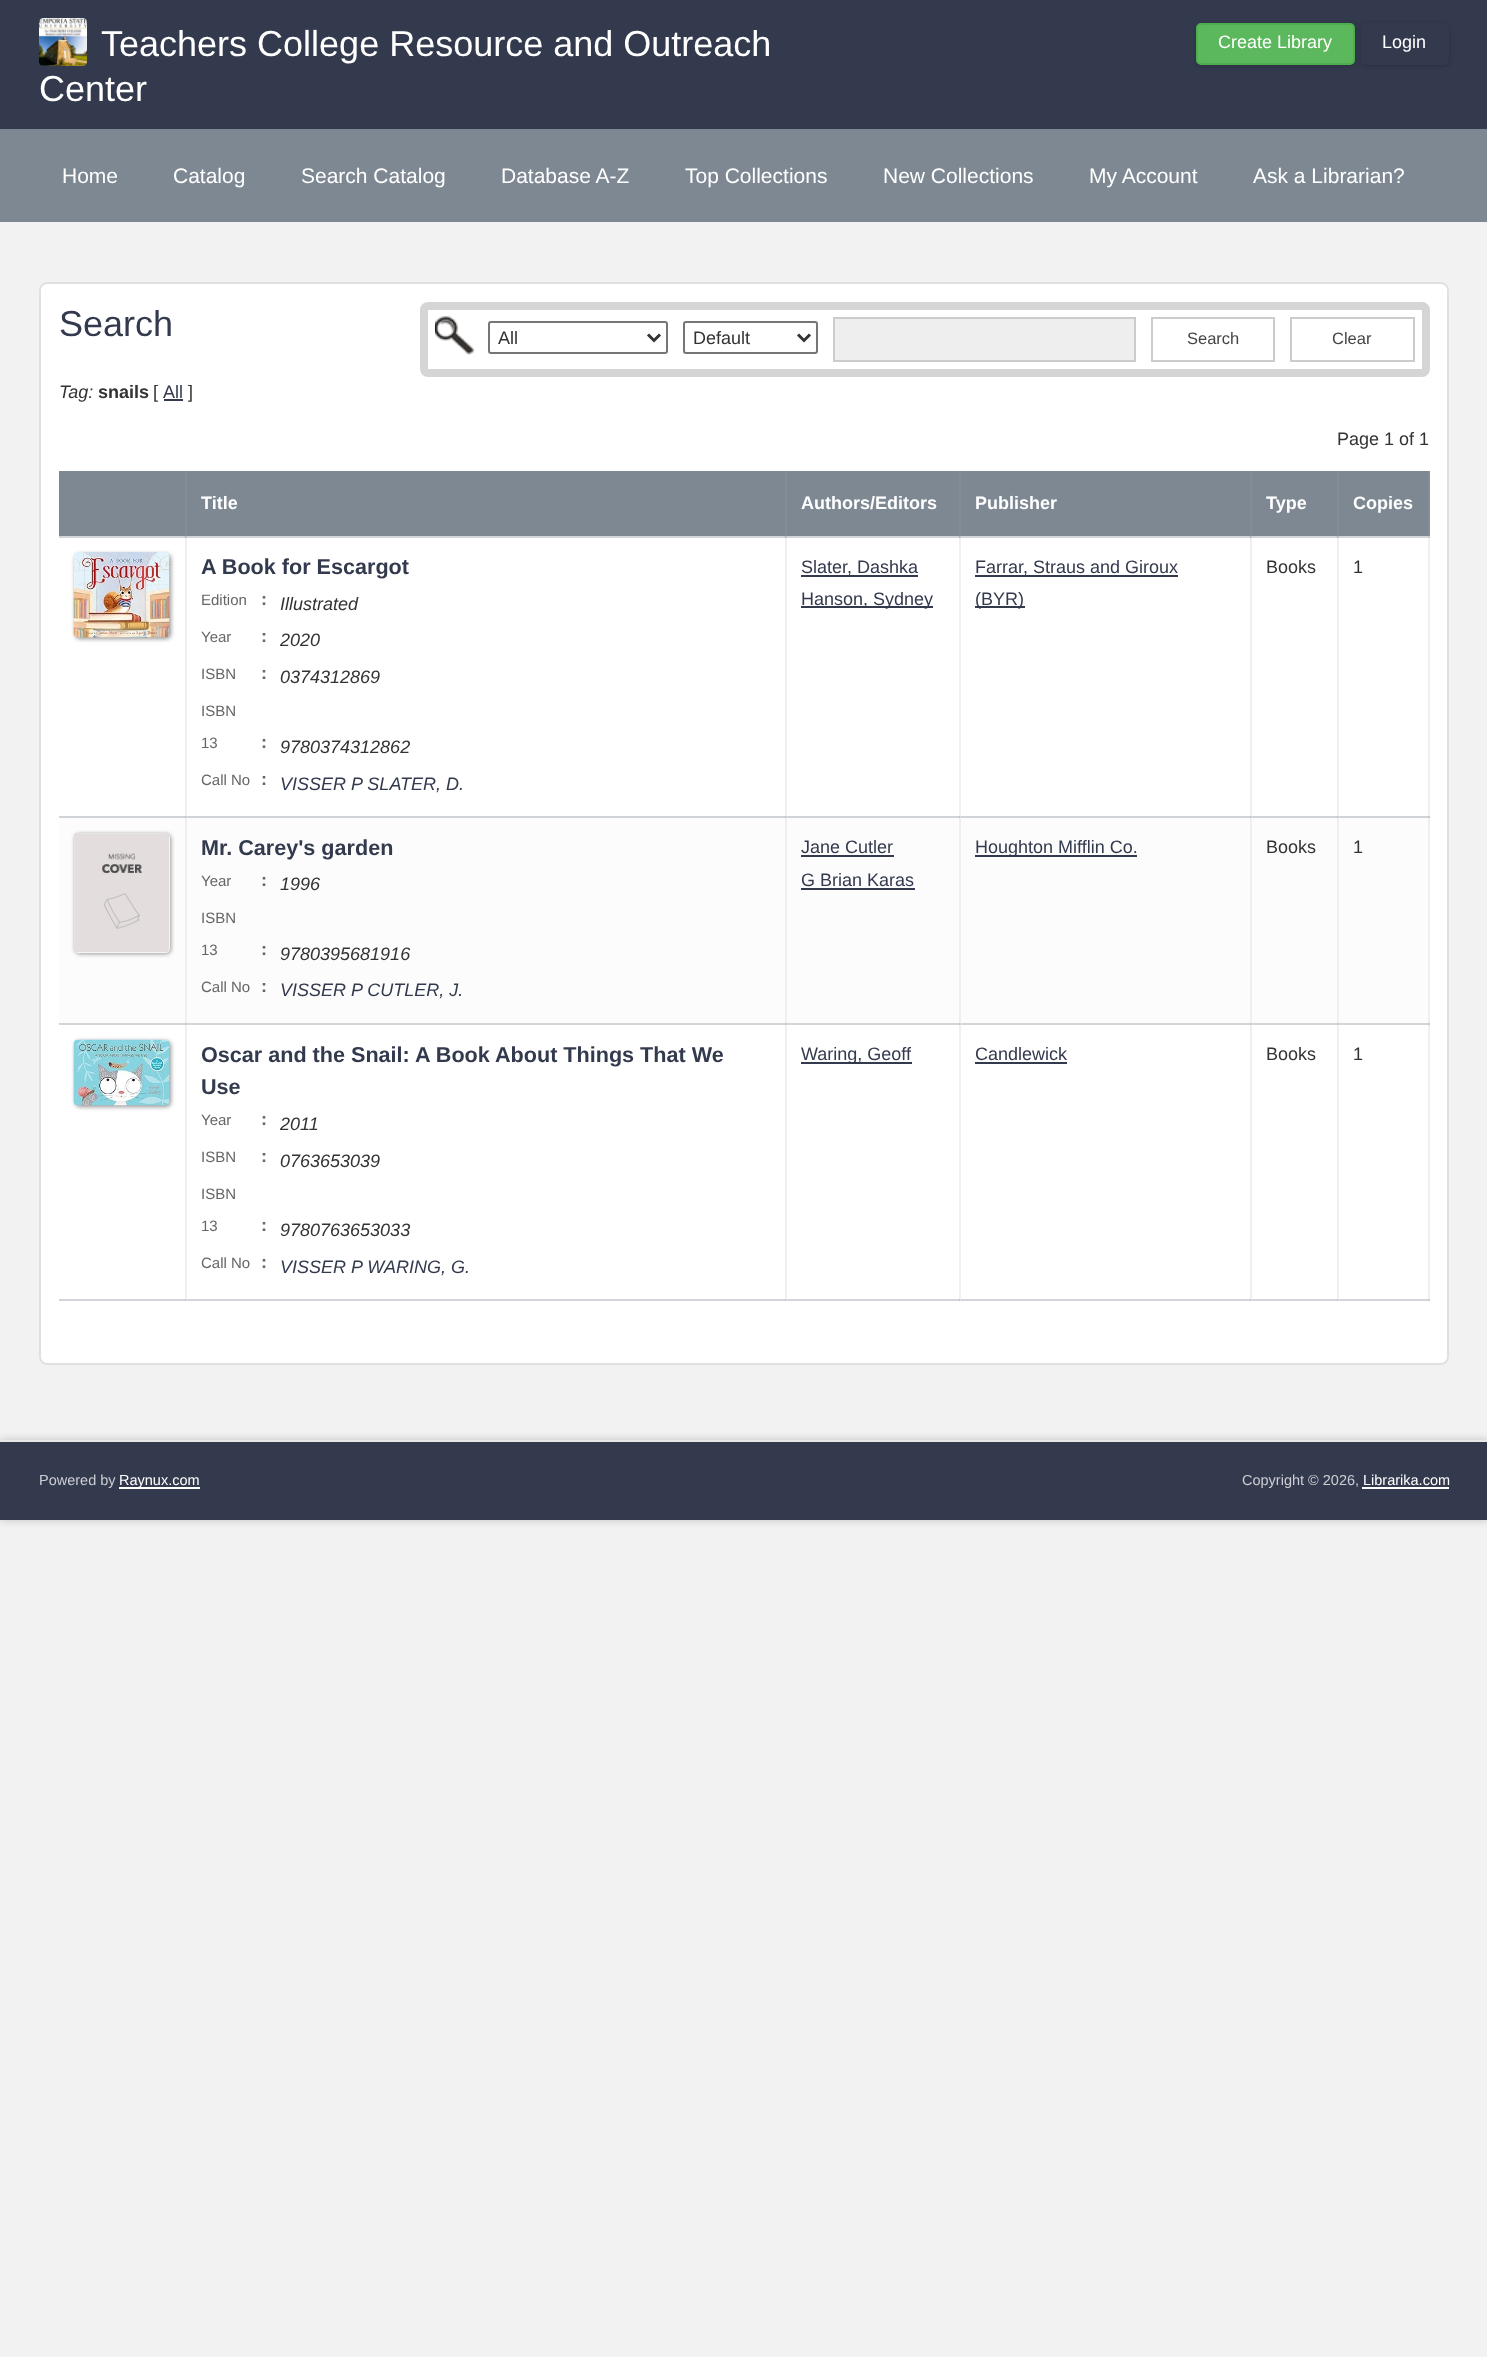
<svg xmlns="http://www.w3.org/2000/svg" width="1487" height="2357">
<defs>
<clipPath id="clip1"><path d="M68 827h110v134h-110zm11 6h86c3 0 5 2 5 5v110c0 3-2 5-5 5h-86c-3 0-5-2-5-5v-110c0-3 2-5 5-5z" clip-rule="evenodd"/></clipPath>
</defs>
<rect width="100%" height="100%" fill="#f2f2f2"/>
<rect width="1487" height="129" fill="#343a4e"/>
<image x="39" y="18" width="48" height="48" href="media/1.png"/>
<text x="101" y="56" style="font-family:Liberation Sans;font-size:36px;fill:#fff">Teachers College Resource and Outreach</text>
<text x="39" y="101" style="font-family:Liberation Sans;font-size:36px;fill:#fff">Center</text>
<rect x="1196" y="24" width="159" height="42" rx="5" fill="#00000033" filter="blur(2px)"/>
<rect x="1197" y="24" width="157" height="40" rx="4" fill="#5cb85c" stroke="#4cae4c" stroke-width="2"/>
<text x="1218" y="48" style="font-family:Liberation Sans;font-size:18px;fill:#fff">Create Library</text>
<rect x="1361" y="24" width="88" height="42" rx="5" fill="#00000033" filter="blur(2px)"/>
<rect x="1361" y="23" width="88" height="42" rx="5" fill="#343a4e"/>
<text x="1382" y="48" style="font-family:Liberation Sans;font-size:18px;fill:#fff">Login</text>
<rect y="129" width="1487" height="93" fill="#7d8892"/>
<text x="62" y="183" style="font-family:Liberation Sans;font-size:21px;fill:#fff">Home</text>
<text x="173" y="183" style="font-family:Liberation Sans;font-size:21px;fill:#fff">Catalog</text>
<text x="301" y="183" style="font-family:Liberation Sans;font-size:21px;fill:#fff">Search Catalog</text>
<text x="501" y="183" style="font-family:Liberation Sans;font-size:21px;fill:#fff">Database A-Z</text>
<text x="685" y="183" style="font-family:Liberation Sans;font-size:21px;fill:#fff">Top Collections</text>
<text x="883" y="183" style="font-family:Liberation Sans;font-size:21px;fill:#fff">New Collections</text>
<text x="1089" y="183" style="font-family:Liberation Sans;font-size:21px;fill:#fff">My Account</text>
<text x="1253" y="183" style="font-family:Liberation Sans;font-size:21px;fill:#fff">Ask a Librarian?</text>
<rect x="39" y="282" width="1410" height="1083" rx="8" fill="#fff"/>
<rect x="59" y="536" width="1371" height="2" fill="#d2d5d9"/>
<rect x="185" y="536" width="2" height="282" fill="#f0f0f0"/>
<rect x="185" y="537" width="2" height="1" fill="#c8cccf"/>
<rect x="185" y="536" width="1" height="2" fill="#aeb4ba"/>
<rect x="185" y="536" width="2" height="1" fill="#cacdd0"/>
<rect x="185" y="536" width="1" height="1" fill="#afb5ba"/>
<rect x="785" y="536" width="2" height="282" fill="#f0f0f0"/>
<rect x="785" y="537" width="2" height="1" fill="#c8cccf"/>
<rect x="785" y="536" width="1" height="2" fill="#aeb4ba"/>
<rect x="785" y="536" width="2" height="1" fill="#cacdd0"/>
<rect x="785" y="536" width="1" height="1" fill="#afb5ba"/>
<rect x="959" y="536" width="2" height="282" fill="#f0f0f0"/>
<rect x="959" y="537" width="2" height="1" fill="#c8cccf"/>
<rect x="959" y="536" width="1" height="2" fill="#aeb4ba"/>
<rect x="959" y="536" width="2" height="1" fill="#cacdd0"/>
<rect x="959" y="536" width="1" height="1" fill="#afb5ba"/>
<rect x="1250" y="536" width="2" height="282" fill="#f0f0f0"/>
<rect x="1250" y="537" width="2" height="1" fill="#c8cccf"/>
<rect x="1250" y="536" width="1" height="2" fill="#aeb4ba"/>
<rect x="1250" y="536" width="2" height="1" fill="#cacdd0"/>
<rect x="1250" y="536" width="1" height="1" fill="#afb5ba"/>
<rect x="1337" y="536" width="2" height="282" fill="#f0f0f0"/>
<rect x="1337" y="537" width="2" height="1" fill="#c8cccf"/>
<rect x="1337" y="536" width="1" height="2" fill="#aeb4ba"/>
<rect x="1337" y="536" width="2" height="1" fill="#cacdd0"/>
<rect x="1337" y="536" width="1" height="1" fill="#afb5ba"/>
<rect x="1428" y="536" width="2" height="282" fill="#f0f0f0"/>
<rect x="1428" y="536" width="2" height="2" fill="#c8cccf"/>
<rect x="59" y="1023" width="1371" height="2" fill="#d2d5d9"/>
<rect x="59" y="1299" width="127" height="2" fill="#d2d5d9"/>
<rect x="185" y="1023" width="2" height="278" fill="#f0f0f0"/>
<rect x="185" y="1023" width="2" height="2" fill="#dddedf"/>
<rect x="185" y="1023" width="1" height="2" fill="#bbc0c4"/>
<rect x="185" y="1299" width="601" height="2" fill="#d2d5d9"/>
<rect x="185" y="1299" width="2" height="2" fill="#e0e1e3"/>
<rect x="185" y="1299" width="1" height="2" fill="#bdc2c7"/>
<rect x="785" y="1023" width="2" height="278" fill="#f0f0f0"/>
<rect x="785" y="1023" width="2" height="2" fill="#dddedf"/>
<rect x="785" y="1023" width="1" height="2" fill="#bbc0c4"/>
<rect x="785" y="1299" width="175" height="2" fill="#d2d5d9"/>
<rect x="785" y="1299" width="2" height="2" fill="#e0e1e3"/>
<rect x="785" y="1299" width="1" height="2" fill="#bdc2c7"/>
<rect x="959" y="1023" width="2" height="278" fill="#f0f0f0"/>
<rect x="959" y="1023" width="2" height="2" fill="#dddedf"/>
<rect x="959" y="1023" width="1" height="2" fill="#bbc0c4"/>
<rect x="959" y="1299" width="292" height="2" fill="#d2d5d9"/>
<rect x="959" y="1299" width="2" height="2" fill="#e0e1e3"/>
<rect x="959" y="1299" width="1" height="2" fill="#bdc2c7"/>
<rect x="1250" y="1023" width="2" height="278" fill="#f0f0f0"/>
<rect x="1250" y="1023" width="2" height="2" fill="#dddedf"/>
<rect x="1250" y="1023" width="1" height="2" fill="#bbc0c4"/>
<rect x="1250" y="1299" width="88" height="2" fill="#d2d5d9"/>
<rect x="1250" y="1299" width="2" height="2" fill="#e0e1e3"/>
<rect x="1250" y="1299" width="1" height="2" fill="#bdc2c7"/>
<rect x="1337" y="1023" width="2" height="278" fill="#f0f0f0"/>
<rect x="1337" y="1023" width="2" height="2" fill="#dddedf"/>
<rect x="1337" y="1023" width="1" height="2" fill="#bbc0c4"/>
<rect x="1337" y="1299" width="93" height="2" fill="#d2d5d9"/>
<rect x="1337" y="1299" width="2" height="2" fill="#e0e1e3"/>
<rect x="1337" y="1299" width="1" height="2" fill="#bdc2c7"/>
<rect x="40" y="283" width="1408" height="1081" rx="7" fill="none" stroke="#e0e0e0" stroke-width="2"/>
<text x="59" y="336" style="font-family:Liberation Sans;font-size:36px;fill:#343a4e">Search</text>
<rect x="424" y="306" width="1002" height="67" rx="4" fill="none" stroke="#d5d5d5" stroke-width="8"/>
<image x="435" y="316" width="40" height="39" href="media/2.png"/>
<rect x="489" y="322" width="178" height="31" rx="2" fill="none" stroke="#767676" stroke-width="2"/>
<path d="M648 334.5l6 6l6-6" fill="none" stroke="#333" stroke-width="3"/>
<text x="498" y="344" style="font-family:Liberation Sans;font-size:18px;fill:#333">All</text>
<rect x="684" y="322" width="133" height="31" rx="2" fill="none" stroke="#767676" stroke-width="2"/>
<path d="M798 334.5l6 6l6-6" fill="none" stroke="#333" stroke-width="3"/>
<text x="693" y="344" style="font-family:Liberation Sans;font-size:18px;fill:#333">Default</text>
<rect x="834" y="318" width="301" height="43" fill="#eee" stroke="#ccc" stroke-width="2"/>
<rect x="1152" y="318" width="122" height="43" fill="none" stroke="#ccc" stroke-width="2"/>
<text x="1187" y="344" style="font-family:Liberation Sans;font-size:16.5px;fill:#444">Search</text>
<rect x="1291" y="318" width="123" height="43" fill="none" stroke="#ccc" stroke-width="2"/>
<text x="1332" y="344" style="font-family:Liberation Sans;font-size:16.5px;fill:#444">Clear</text>
<text x="59" y="398" style="font-family:Liberation Sans;font-size:18px;font-style:italic;fill:#333">Tag:</text>
<text x="98" y="398" style="font-family:Liberation Sans;font-size:18px;font-weight:bold;fill:#333">snails</text>
<text x="153" y="398" style="font-family:Liberation Sans;font-size:18px;fill:#333">[</text>
<text x="163" y="398" style="font-family:Liberation Sans;font-size:18px;fill:#343a4e">All</text>
<rect x="164" y="399" width="19" height="2" fill="#343a4e"/>
<text x="188" y="398" style="font-family:Liberation Sans;font-size:18px;fill:#333">]</text>
<text x="1337" y="445" style="font-family:Liberation Sans;font-size:18px;fill:#333">Page 1 of 1</text>
<rect x="59" y="471" width="1371" height="2" fill="#7d8892"/>
<rect x="185" y="471" width="2" height="2" fill="#828d96"/>
<rect x="785" y="471" width="2" height="2" fill="#828d96"/>
<rect x="959" y="471" width="2" height="2" fill="#828d96"/>
<rect x="1250" y="471" width="2" height="2" fill="#828d96"/>
<rect x="1337" y="471" width="2" height="2" fill="#828d96"/>
<rect x="1428" y="471" width="2" height="2" fill="#828d96"/>
<rect x="59" y="473" width="126" height="63" fill="#7d8892"/>
<rect x="185" y="473" width="2" height="63" fill="#828d96"/>
<rect x="187" y="473" width="598" height="63" fill="#7d8892"/>
<rect x="785" y="473" width="2" height="63" fill="#828d96"/>
<text x="201" y="509" style="font-family:Liberation Sans;font-size:18px;font-weight:bold;fill:#fff">Title</text>
<rect x="787" y="473" width="172" height="63" fill="#7d8892"/>
<text x="801" y="509" style="font-family:Liberation Sans;font-size:18px;font-weight:bold;fill:#fff">Authors/Editors</text>
<rect x="961" y="473" width="289" height="63" fill="#7d8892"/>
<rect x="959" y="473" width="2" height="63" fill="#828d96"/>
<rect x="1250" y="473" width="2" height="63" fill="#828d96"/>
<text x="975" y="509" style="font-family:Liberation Sans;font-size:18px;font-weight:bold;fill:#fff">Publisher</text>
<rect x="1252" y="473" width="85" height="63" fill="#7d8892"/>
<text x="1266" y="509" style="font-family:Liberation Sans;font-size:18px;font-weight:bold;fill:#fff">Type</text>
<rect x="1339" y="473" width="89" height="63" fill="#7d8892"/>
<rect x="1337" y="473" width="2" height="63" fill="#828d96"/>
<rect x="1428" y="473" width="2" height="63" fill="#828d96"/>
<text x="1353" y="509" style="font-family:Liberation Sans;font-size:18px;font-weight:bold;fill:#fff">Copies</text>
<rect x="75" y="554" width="96" height="85" rx="5" fill="#999" filter="blur(2px)"/>
<image x="73" y="552" width="97" height="86" href="media/3.png"/>
<text x="201" y="574" style="font-family:Liberation Sans;font-size:21.6px;font-weight:bold;fill:#343a4e">A Book for Escargot</text>
<text x="201" y="605" style="font-family:Liberation Sans;font-size:15px;fill:#666">Edition</text>
<text x="261" y="605" style="font-family:Liberation Sans;font-size:18px;font-weight:bold;fill:#666">:</text>
<text x="280" y="610" style="font-family:Liberation Sans;font-size:18px;font-style:italic;fill:#333">Illustrated</text>
<text x="201" y="642" style="font-family:Liberation Sans;font-size:15px;fill:#666">Year</text>
<text x="261" y="642" style="font-family:Liberation Sans;font-size:18px;font-weight:bold;fill:#666">:</text>
<text x="280" y="646" style="font-family:Liberation Sans;font-size:18px;font-style:italic;fill:#333">2020</text>
<text x="201" y="679" style="font-family:Liberation Sans;font-size:15px;fill:#666">ISBN</text>
<text x="261" y="679" style="font-family:Liberation Sans;font-size:18px;font-weight:bold;fill:#666">:</text>
<text x="280" y="683" style="font-family:Liberation Sans;font-size:18px;font-style:italic;fill:#333">0374312869</text>
<text x="201" y="716" style="font-family:Liberation Sans;font-size:15px;fill:#666">ISBN</text>
<text x="201" y="748" style="font-family:Liberation Sans;font-size:15px;fill:#666">13</text>
<text x="261" y="748" style="font-family:Liberation Sans;font-size:18px;font-weight:bold;fill:#666">:</text>
<text x="280" y="753" style="font-family:Liberation Sans;font-size:18px;font-style:italic;fill:#333">9780374312862</text>
<text x="201" y="785" style="font-family:Liberation Sans;font-size:15px;fill:#666">Call No</text>
<text x="261" y="785" style="font-family:Liberation Sans;font-size:18px;font-weight:bold;fill:#666">:</text>
<text x="280" y="790" style="font-family:Liberation Sans;font-size:18px;font-style:italic;fill:#343a4e">VISSER P SLATER, D.</text>
<rect x="801" y="575" width="117" height="2" fill="#343a4e"/>
<text x="801" y="573" style="font-family:Liberation Sans;font-size:18px;fill:#343a4e">Slater, Dashka</text>
<rect x="801" y="606" width="132" height="2" fill="#343a4e"/>
<text x="801" y="605" style="font-family:Liberation Sans;font-size:18px;fill:#343a4e">Hanson, Sydney</text>
<rect x="975" y="575" width="203" height="2" fill="#343a4e"/>
<text x="975" y="573" style="font-family:Liberation Sans;font-size:18px;fill:#343a4e">Farrar, Straus and Giroux</text>
<rect x="975" y="606" width="50" height="2" fill="#343a4e"/>
<text x="975" y="605" style="font-family:Liberation Sans;font-size:18px;fill:#343a4e">(BYR)</text>
<text x="1266" y="573" style="font-family:Liberation Sans;font-size:18px;fill:#333">Books</text>
<text x="1353" y="573" style="font-family:Liberation Sans;font-size:18px;fill:#333">1</text>
<rect x="59" y="818" width="1369" height="205" fill="#fcfcfc"/>
<rect x="59" y="816" width="1371" height="2" fill="#d0d3d7"/>
<rect x="185" y="816" width="2" height="207" fill="#efefef"/>
<rect x="185" y="816" width="2" height="2" fill="#dcdedf"/>
<rect x="185" y="816" width="1" height="2" fill="#bbc0c4"/>
<rect x="785" y="816" width="2" height="207" fill="#efefef"/>
<rect x="785" y="816" width="2" height="2" fill="#dcdedf"/>
<rect x="785" y="816" width="1" height="2" fill="#bbc0c4"/>
<rect x="959" y="816" width="2" height="207" fill="#efefef"/>
<rect x="959" y="816" width="2" height="2" fill="#dcdedf"/>
<rect x="959" y="816" width="1" height="2" fill="#bbc0c4"/>
<rect x="1250" y="816" width="2" height="207" fill="#efefef"/>
<rect x="1250" y="816" width="2" height="2" fill="#dcdedf"/>
<rect x="1250" y="816" width="1" height="2" fill="#bbc0c4"/>
<rect x="1337" y="816" width="2" height="207" fill="#efefef"/>
<rect x="1337" y="816" width="2" height="2" fill="#dcdedf"/>
<rect x="1337" y="816" width="1" height="2" fill="#bbc0c4"/>
<rect x="1428" y="816" width="2" height="207" fill="#efefef"/>
<rect x="1428" y="816" width="2" height="2" fill="#c4c8cb"/>
<g clip-path="url(#clip1)">
<rect x="75" y="834" width="96" height="120" rx="5" fill="#999" filter="blur(2px)"/>
</g>
<image x="73" y="832" width="97" height="121" href="media/4.png"/>
<text x="201" y="855" style="font-family:Liberation Sans;font-size:21.6px;font-weight:bold;fill:#343a4e">Mr. Carey's garden</text>
<text x="201" y="886" style="font-family:Liberation Sans;font-size:15px;fill:#666">Year</text>
<text x="261" y="886" style="font-family:Liberation Sans;font-size:18px;font-weight:bold;fill:#666">:</text>
<text x="280" y="890" style="font-family:Liberation Sans;font-size:18px;font-style:italic;fill:#333">1996</text>
<text x="201" y="923" style="font-family:Liberation Sans;font-size:15px;fill:#666">ISBN</text>
<text x="201" y="955" style="font-family:Liberation Sans;font-size:15px;fill:#666">13</text>
<text x="261" y="955" style="font-family:Liberation Sans;font-size:18px;font-weight:bold;fill:#666">:</text>
<text x="280" y="960" style="font-family:Liberation Sans;font-size:18px;font-style:italic;fill:#333">9780395681916</text>
<text x="201" y="992" style="font-family:Liberation Sans;font-size:15px;fill:#666">Call No</text>
<text x="261" y="992" style="font-family:Liberation Sans;font-size:18px;font-weight:bold;fill:#666">:</text>
<text x="280" y="996" style="font-family:Liberation Sans;font-size:18px;font-style:italic;fill:#343a4e">VISSER P CUTLER, J.</text>
<text x="801" y="853" style="font-family:Liberation Sans;font-size:18px;fill:#343a4e">Jane Cutler</text>
<rect x="801" y="855" width="93" height="2" fill="#343a4e"/>
<text x="801" y="886" style="font-family:Liberation Sans;font-size:18px;fill:#343a4e">G Brian Karas</text>
<rect x="801" y="888" width="114" height="2" fill="#343a4e"/>
<rect x="975" y="855" width="162" height="2" fill="#343a4e"/>
<text x="975" y="853" style="font-family:Liberation Sans;font-size:18px;fill:#343a4e">Houghton Mifflin Co.</text>
<text x="1266" y="853" style="font-family:Liberation Sans;font-size:18px;fill:#333">Books</text>
<text x="1353" y="853" style="font-family:Liberation Sans;font-size:18px;fill:#333">1</text>
<rect x="75" y="1041" width="96" height="66" rx="5" fill="#999" filter="blur(2px)"/>
<image x="73" y="1039" width="97" height="67" href="media/5.png"/>
<text x="201" y="1062" style="font-family:Liberation Sans;font-size:21.6px;font-weight:bold;fill:#343a4e">Oscar and the Snail: A Book About Things That We</text>
<text x="201" y="1094" style="font-family:Liberation Sans;font-size:21.6px;font-weight:bold;fill:#343a4e">Use</text>
<text x="201" y="1125" style="font-family:Liberation Sans;font-size:15px;fill:#666">Year</text>
<text x="261" y="1125" style="font-family:Liberation Sans;font-size:18px;font-weight:bold;fill:#666">:</text>
<text x="280" y="1130" style="font-family:Liberation Sans;font-size:18px;font-style:italic;fill:#333">2011</text>
<text x="201" y="1162" style="font-family:Liberation Sans;font-size:15px;fill:#666">ISBN</text>
<text x="261" y="1162" style="font-family:Liberation Sans;font-size:18px;font-weight:bold;fill:#666">:</text>
<text x="280" y="1167" style="font-family:Liberation Sans;font-size:18px;font-style:italic;fill:#333">0763653039</text>
<text x="201" y="1199" style="font-family:Liberation Sans;font-size:15px;fill:#666">ISBN</text>
<text x="201" y="1231" style="font-family:Liberation Sans;font-size:15px;fill:#666">13</text>
<text x="261" y="1231" style="font-family:Liberation Sans;font-size:18px;font-weight:bold;fill:#666">:</text>
<text x="280" y="1236" style="font-family:Liberation Sans;font-size:18px;font-style:italic;fill:#333">9780763653033</text>
<text x="201" y="1268" style="font-family:Liberation Sans;font-size:15px;fill:#666">Call No</text>
<text x="261" y="1268" style="font-family:Liberation Sans;font-size:18px;font-weight:bold;fill:#666">:</text>
<text x="280" y="1273" style="font-family:Liberation Sans;font-size:18px;font-style:italic;fill:#343a4e">VISSER P WARING, G.</text>
<rect x="801" y="1062" width="111" height="2" fill="#343a4e"/>
<text x="801" y="1060" style="font-family:Liberation Sans;font-size:18px;fill:#343a4e">Waring, Geoff</text>
<text x="975" y="1060" style="font-family:Liberation Sans;font-size:18px;fill:#343a4e">Candlewick</text>
<rect x="975" y="1062" width="92" height="2" fill="#343a4e"/>
<text x="1266" y="1060" style="font-family:Liberation Sans;font-size:18px;fill:#333">Books</text>
<rect x="1428" y="1023" width="2" height="278" fill="#f0f0f0"/>
<rect x="1428" y="1023" width="2" height="2" fill="#c5c8cc"/>
<rect x="1428" y="1299" width="2" height="2" fill="#c8cccf"/>
<text x="1353" y="1060" style="font-family:Liberation Sans;font-size:18px;fill:#333">1</text>
<rect y="1440" width="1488" height="80" fill="#00000033" filter="blur(4px)"/>
<rect y="1442" width="1487" height="78" fill="#343a4e"/>
<rect y="1440" width="1487" height="2" fill="#e8e8e8"/>
<text x="39" y="1485" style="font-family:Liberation Sans;font-size:14.5px;fill:#ccced3">Powered by</text>
<rect x="119" y="1487" width="81" height="2" fill="#fff"/>
<text x="119" y="1485" style="font-family:Liberation Sans;font-size:14.5px;fill:#fff">Raynux.com</text>
<text x="1242" y="1485" style="font-family:Liberation Sans;font-size:14.5px;fill:#ccced3">Copyright © 2026,</text>
<text x="1363" y="1485" style="font-family:Liberation Sans;font-size:14.5px;fill:#fff">Librarika.com</text>
<rect x="1362" y="1487" width="87" height="2" fill="#fff"/>
</svg>
